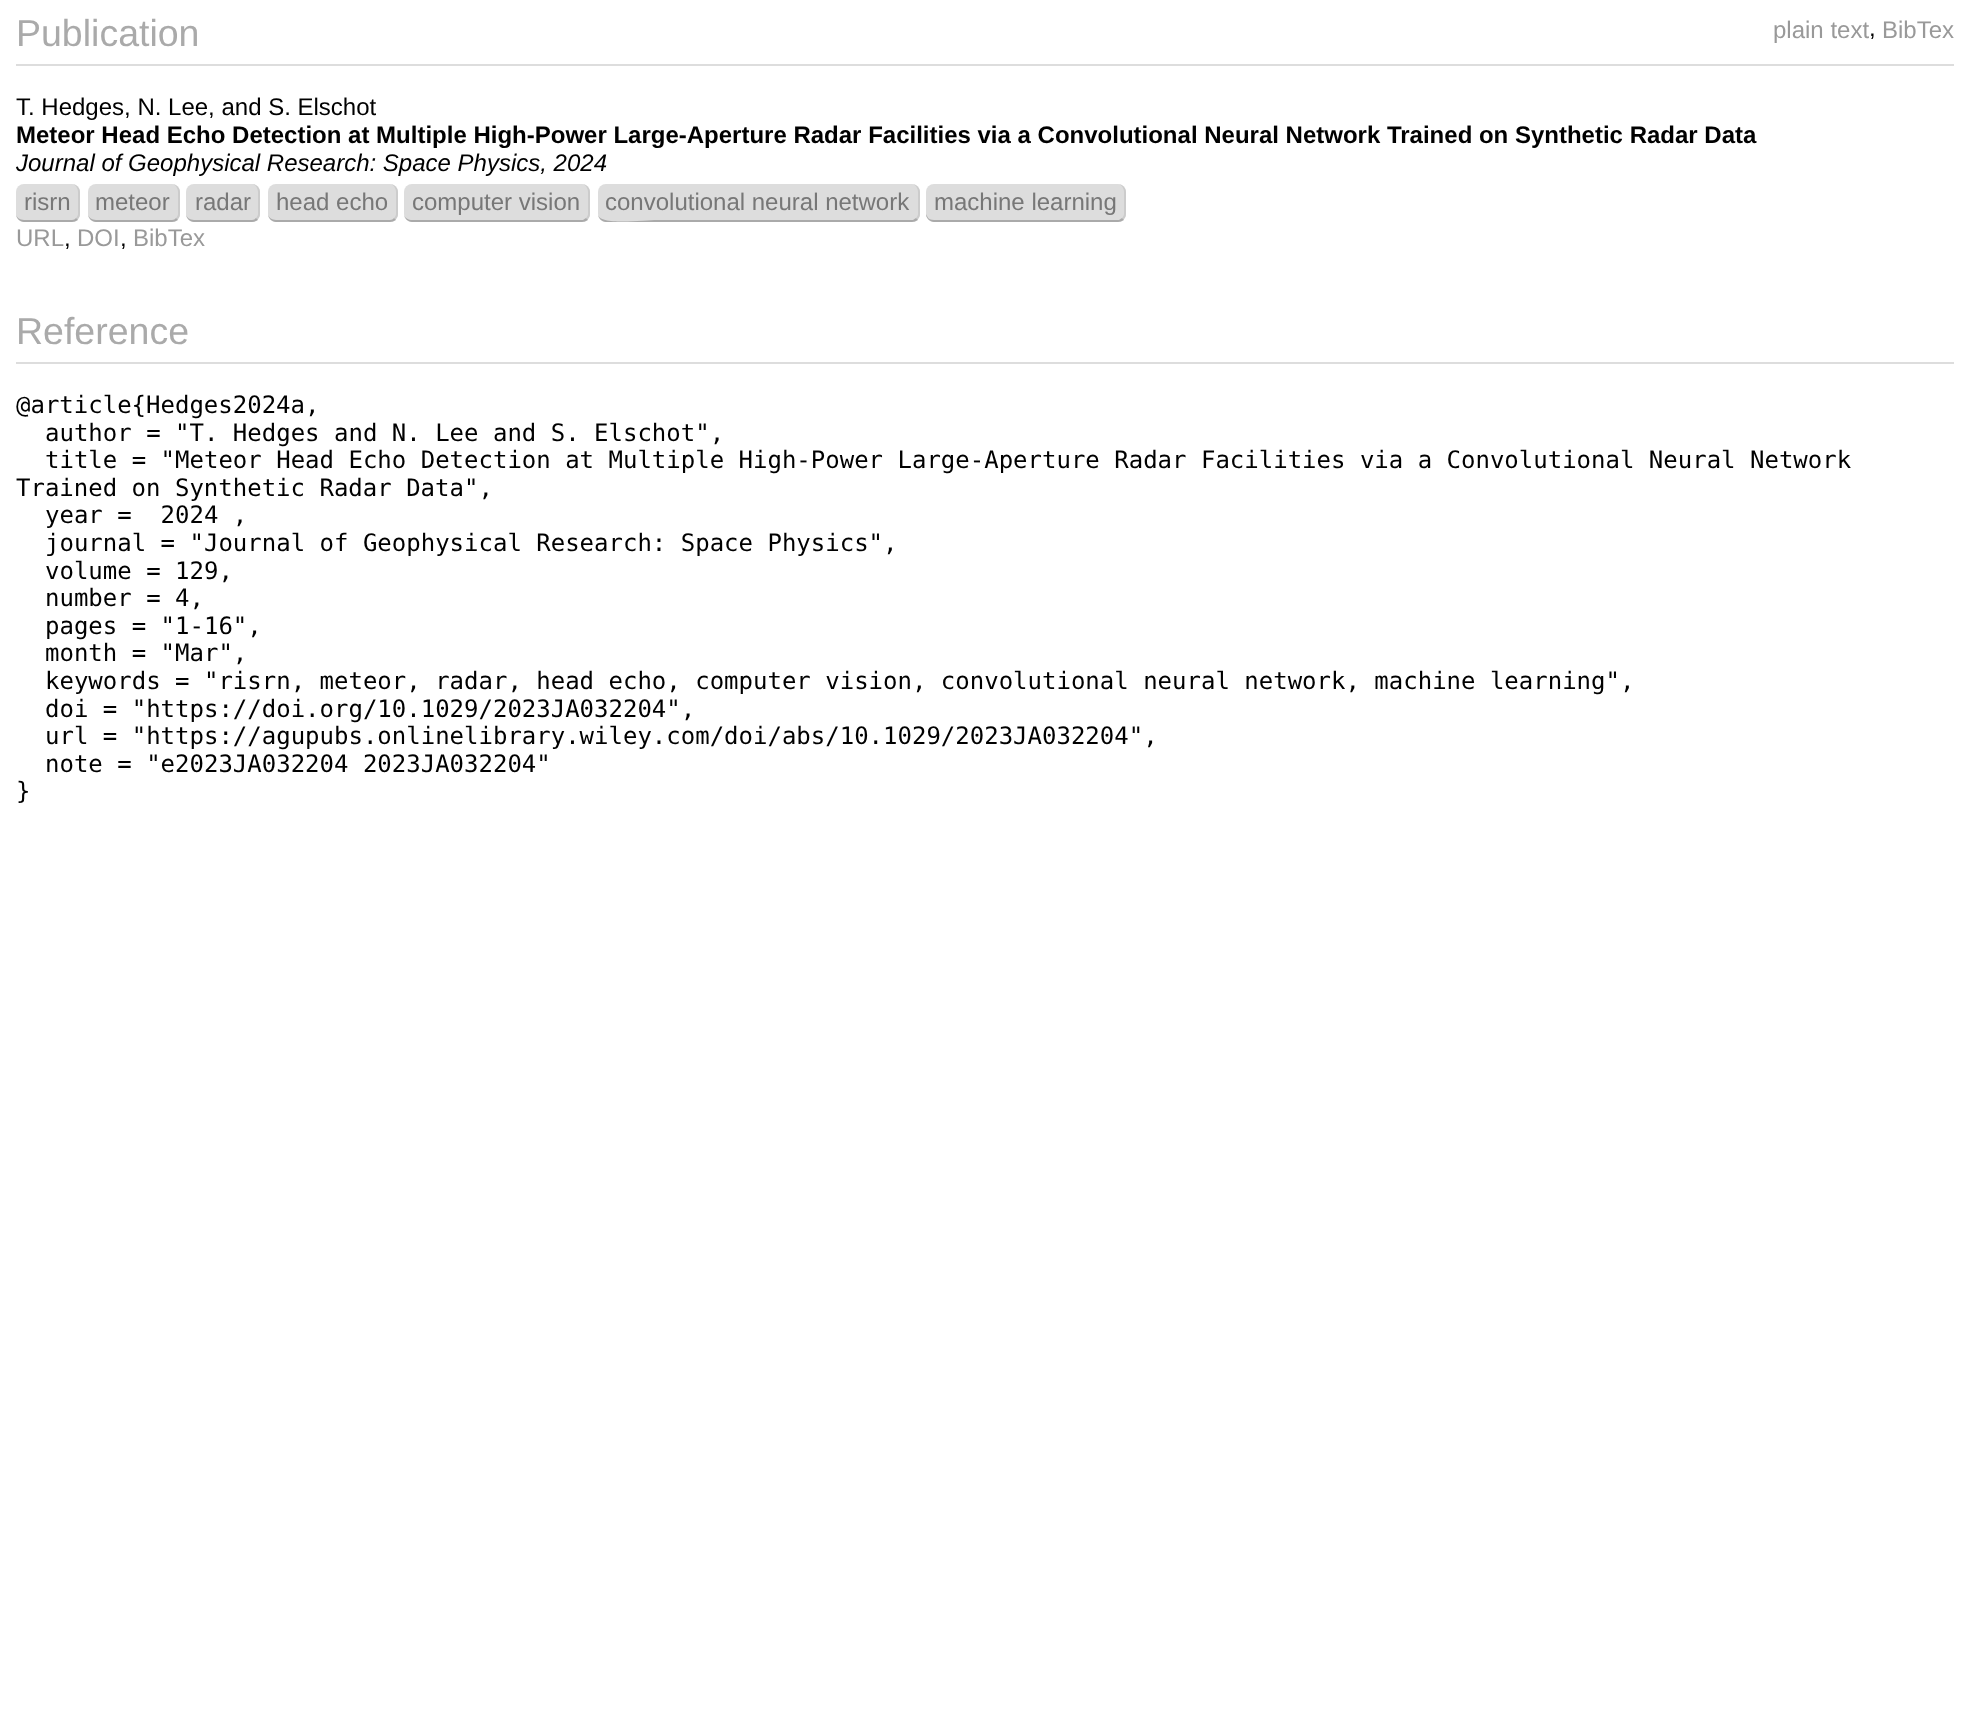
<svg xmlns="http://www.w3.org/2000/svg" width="1969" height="1722">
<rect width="100%" height="100%" fill="#fff"/>
<text x="16" y="46" style="font-family:Liberation Sans;font-size:37.5px;fill:#aaa">Publication</text>
<text x="1773" y="38" style="font-family:Liberation Sans;font-size:24px;fill:#999">plain text</text>
<text x="1869" y="36" style="font-family:Liberation Sans;font-size:24px;fill:#000">,</text>
<text x="1882" y="38" style="font-family:Liberation Sans;font-size:24px;fill:#999">BibTex</text>
<rect x="16" y="64" width="1938" height="2" fill="#ddd"/>
<text x="16" y="115" style="font-family:Liberation Sans;font-size:24px;fill:#000">T. Hedges, N. Lee, and S. Elschot</text>
<text x="16" y="143" style="font-family:Liberation Sans;font-size:24px;font-weight:bold;fill:#000">Meteor Head Echo Detection at Multiple High-Power Large-Aperture Radar Facilities via a Convolutional Neural Network Trained on Synthetic Radar Data</text>
<text x="16" y="171" style="font-family:Liberation Sans;font-size:24px;font-style:italic;fill:#000">Journal of Geophysical Research: Space Physics, 2024</text>
<rect x="16" y="184" width="64" height="38" rx="8" fill="#ddd"/>
<text x="24" y="210" style="font-family:Liberation Sans;font-size:24px;fill:#777">risrn</text>
<path d="M80 192c0-4-4-8-8-8c3 0 6 4 6 8v22c0 1.5-1 3-2 4l1.5 1.5c1.5-1.5 2.5-3.5 2.5-5.5z" fill="#ccc"/>
<path d="M24 222h48c2 0 4-1 6-2l-2-2c-1 1-2 2-4 2h-48c-4 0-8-3-8-6c0 4 4 8 8 8z" fill="#aaa"/>
<rect x="88" y="184" width="92" height="38" rx="8" fill="#ddd"/>
<text x="95" y="210" style="font-family:Liberation Sans;font-size:24px;fill:#777">meteor</text>
<path d="M180 192c0-4-4-8-8-8c3 0 6 4 6 8v22c0 1.5-1 3-2 4l1.5 1.5c1.5-1.5 2.5-3.5 2.5-5.5z" fill="#ccc"/>
<path d="M96 222h76c2 0 4-1 6-2l-2-2c-1 1-2 2-4 2h-76c-4 0-8-3-8-6c0 4 4 8 8 8z" fill="#aaa"/>
<rect x="186" y="184" width="74" height="38" rx="8" fill="#ddd"/>
<text x="195" y="210" style="font-family:Liberation Sans;font-size:24px;fill:#777">radar</text>
<path d="M260 192c0-4-4-8-8-8c3 0 6 4 6 8v22c0 1.5-1 3-2 4l1.5 1.5c1.5-1.5 2.5-3.5 2.5-5.5z" fill="#ccc"/>
<path d="M194 222h58c2 0 4-1 6-2l-2-2c-1 1-2 2-4 2h-58c-4 0-8-3-8-6c0 4 4 8 8 8z" fill="#aaa"/>
<rect x="268" y="184" width="130" height="38" rx="8" fill="#ddd"/>
<text x="276" y="210" style="font-family:Liberation Sans;font-size:24px;fill:#777">head echo</text>
<path d="M398 192c0-4-4-8-8-8c3 0 6 4 6 8v22c0 1.5-1 3-2 4l1.5 1.5c1.5-1.5 2.5-3.5 2.5-5.5z" fill="#ccc"/>
<path d="M276 222h114c2 0 4-1 6-2l-2-2c-1 1-2 2-4 2h-114c-4 0-8-3-8-6c0 4 4 8 8 8z" fill="#aaa"/>
<rect x="404" y="184" width="186" height="38" rx="8" fill="#ddd"/>
<path d="M590 192c0-4-4-8-8-8c3 0 6 4 6 8v22c0 1.5-1 3-2 4l1.5 1.5c1.5-1.5 2.5-3.5 2.5-5.5z" fill="#ccc"/>
<path d="M412 222h170c2 0 4-1 6-2l-2-2l-3 2h-171c-3 0-8-2-8-6c0 4 4 8 8 8z" fill="#aaa"/>
<text x="412" y="210" style="font-family:Liberation Sans;font-size:24px;fill:#777">computer vision</text>
<rect x="598" y="184" width="322" height="38" rx="8" fill="#ddd"/>
<text x="605" y="210" style="font-family:Liberation Sans;font-size:24px;fill:#777">convolutional neural network</text>
<path d="M920 192c0-4-4-8-8-8c3 0 6 4 6 8v22c0 1.5-1 3-2 4l1.5 1.5c1.5-1.5 2.5-3.5 2.5-5.5z" fill="#ccc"/>
<path d="M606 222h306c2 0 4-1 6-2l-2-2l-3 2h-256c-13 0-59 6-59-6c0 4 4 8 8 8z" fill="#aaa"/>
<rect x="926" y="184" width="200" height="38" rx="8" fill="#ddd"/>
<path d="M1126 192c0-4-4-8-8-8c3 0 6 4 6 8v22c0 1.5-1 3-2 4l1.5 1.5c1.5-1.5 2.5-3.5 2.5-5.5z" fill="#ccc"/>
<path d="M934 222h184c2 0 4-1 6-2l-2-2l-3 2h-185c-3 0-6-1-7-4l-1-2c0 4 4 8 8 8z" fill="#aaa"/>
<text x="934" y="210" style="font-family:Liberation Sans;font-size:24px;fill:#777">machine learning</text>
<text x="16" y="246" style="font-family:Liberation Sans;font-size:24px;fill:#999">URL</text>
<text x="64" y="246" style="font-family:Liberation Sans;font-size:24px;fill:#000">,</text>
<text x="77" y="246" style="font-family:Liberation Sans;font-size:24px;fill:#999">DOI</text>
<text x="120" y="246" style="font-family:Liberation Sans;font-size:24px;fill:#000">,</text>
<text x="133" y="246" style="font-family:Liberation Sans;font-size:24px;fill:#999">BibTex</text>
<text x="16" y="344" style="font-family:Liberation Sans;font-size:37.5px;fill:#aaa">Reference</text>
<rect x="16" y="362" width="1938" height="2" fill="#ddd"/>
<text x="16" y="413" style="font-family:DejaVu Sans Mono;font-size:24px;fill:#000">@article{Hedges2024a,</text>
<text x="45" y="441" style="font-family:DejaVu Sans Mono;font-size:24px;fill:#000">author = "T. Hedges and N. Lee and S. Elschot",</text>
<text x="45" y="468" style="font-family:DejaVu Sans Mono;font-size:24px;fill:#000">title = "Meteor Head Echo Detection at Multiple High-Power Large-Aperture Radar Facilities via a Convolutional Neural Network</text>
<text x="16" y="496" style="font-family:DejaVu Sans Mono;font-size:24px;fill:#000">Trained on Synthetic Radar Data",</text>
<text x="45" y="523" style="font-family:DejaVu Sans Mono;font-size:24px;fill:#000" xml:space="preserve">year =  2024 ,</text>
<text x="45" y="551" style="font-family:DejaVu Sans Mono;font-size:24px;fill:#000">journal = "Journal of Geophysical Research: Space Physics",</text>
<text x="45" y="579" style="font-family:DejaVu Sans Mono;font-size:24px;fill:#000">volume = 129,</text>
<text x="45" y="606" style="font-family:DejaVu Sans Mono;font-size:24px;fill:#000">number = 4,</text>
<text x="45" y="634" style="font-family:DejaVu Sans Mono;font-size:24px;fill:#000">pages = "1-16",</text>
<text x="45" y="661" style="font-family:DejaVu Sans Mono;font-size:24px;fill:#000">month = "Mar",</text>
<text x="45" y="689" style="font-family:DejaVu Sans Mono;font-size:24px;fill:#000">keywords = "risrn, meteor, radar, head echo, computer vision, convolutional neural network, machine learning",</text>
<text x="45" y="717" style="font-family:DejaVu Sans Mono;font-size:24px;fill:#000">doi = "https://doi.org/10.1029/2023JA032204",</text>
<text x="45" y="744" style="font-family:DejaVu Sans Mono;font-size:24px;fill:#000">url = "https://agupubs.onlinelibrary.wiley.com/doi/abs/10.1029/2023JA032204",</text>
<text x="45" y="772" style="font-family:DejaVu Sans Mono;font-size:24px;fill:#000">note = "e2023JA032204 2023JA032204"</text>
<text x="16" y="799" style="font-family:DejaVu Sans Mono;font-size:24px;fill:#000">}</text>
</svg>
